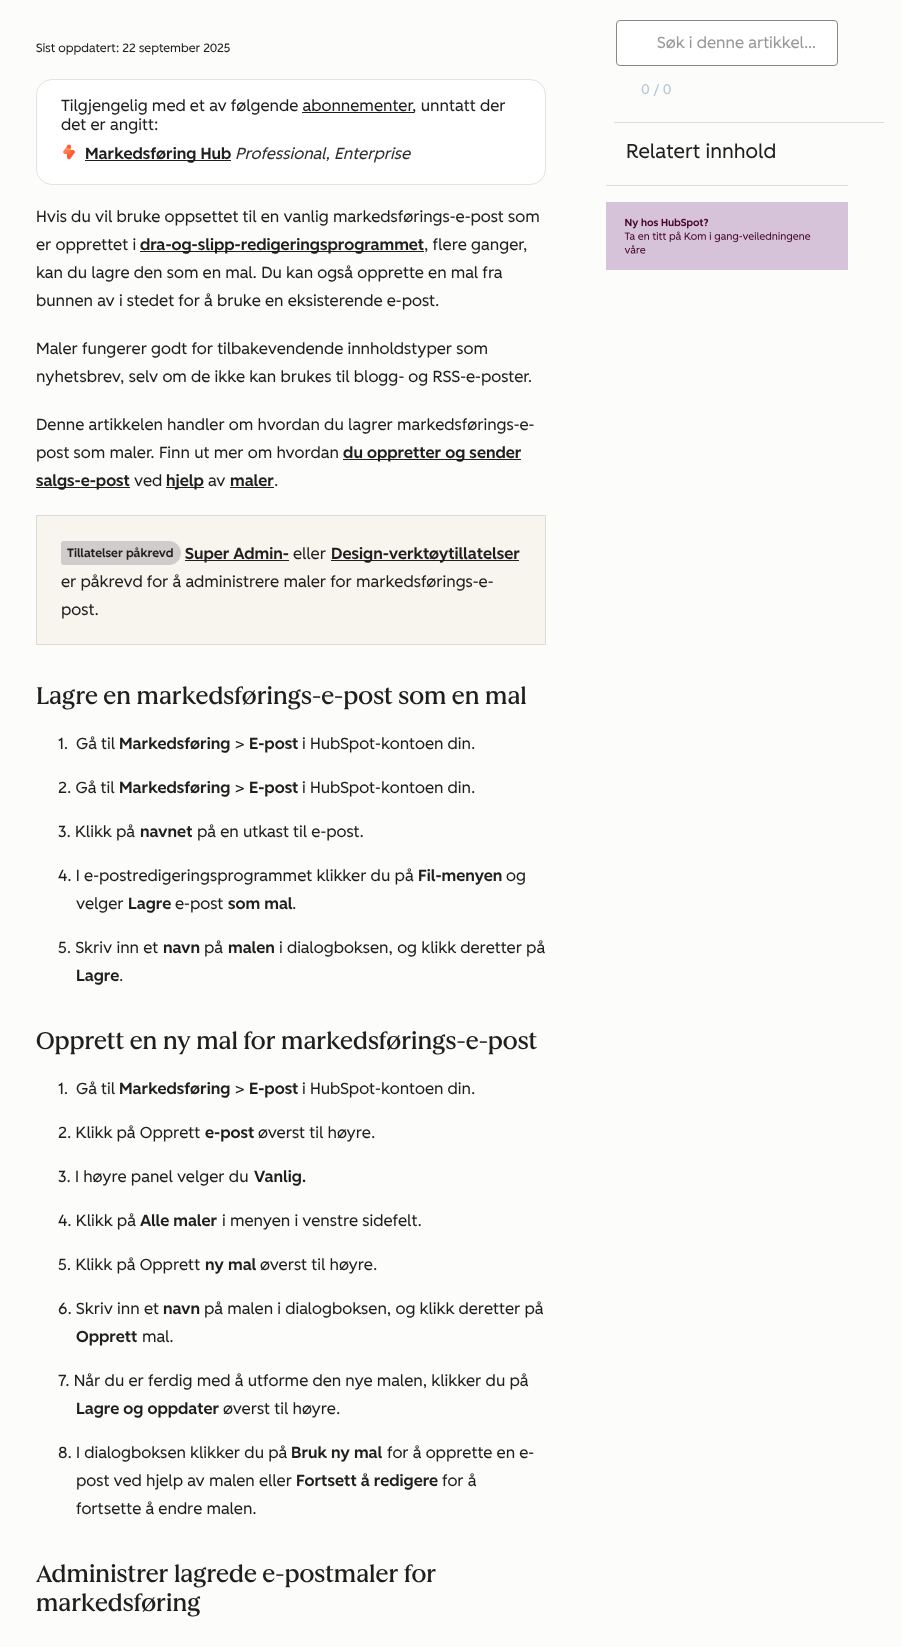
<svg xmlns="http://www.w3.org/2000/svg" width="902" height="1647">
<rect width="100%" height="100%" fill="#fcfcfa"/>
<text x="36" y="52" style="font-family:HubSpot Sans;font-size:12px;fill:#1f1f1f">Sist oppdatert: 22 september 2025</text>
<rect x="36.5" y="79.5" width="509" height="105" rx="15.5" fill="#fff" stroke="#e3e3e3"/>
<text x="61" y="111" style="font-family:HubSpot Sans;font-size:16px;fill:#1f1f1f">Tilgjengelig med et av følgende abonnementer, unntatt der</text>
<rect x="302" y="112" width="112" height="1" fill="#1f1f1f"/>
<text x="61" y="130" style="font-family:HubSpot Sans;font-size:16px;fill:#1f1f1f">det er angitt:</text>
<image x="63" y="144" width="12" height="16" href="media/1.png"/>
<rect x="85" y="160" width="146" height="1" fill="#1f1f1f"/>
<text x="85" y="159" style="font-family:HubSpot Sans;font-size:16px;font-weight:500;fill:#1f1f1f">Markedsføring Hub</text>
<text x="235" y="159" style="font-family:HubSpot Sans;font-size:16px;font-style:italic;fill:#303030">Professional, Enterprise</text>
<text x="36" y="222" style="font-family:HubSpot Sans;font-size:16px;fill:#1f1f1f">Hvis du vil bruke oppsettet til en vanlig markedsførings-e-post som</text>
<text x="36" y="250" style="font-family:HubSpot Sans;font-size:16px;fill:#1f1f1f">er opprettet i</text>
<rect x="140" y="251" width="284" height="1" fill="#1f1f1f"/>
<text x="140" y="250" style="font-family:HubSpot Sans;font-size:16px;font-weight:500;fill:#1f1f1f">dra-og-slipp-redigeringsprogrammet</text>
<text x="424" y="250" style="font-family:HubSpot Sans;font-size:16px;fill:#1f1f1f">, flere ganger,</text>
<text x="36" y="278" style="font-family:HubSpot Sans;font-size:16px;fill:#1f1f1f">kan du lagre den som en mal. Du kan også opprette en mal fra</text>
<text x="36" y="306" style="font-family:HubSpot Sans;font-size:16px;fill:#1f1f1f">bunnen av i stedet for å bruke en eksisterende e-post.</text>
<text x="36" y="354" style="font-family:HubSpot Sans;font-size:16px;fill:#1f1f1f">Maler fungerer godt for tilbakevendende innholdstyper som</text>
<text x="36" y="382" style="font-family:HubSpot Sans;font-size:16px;fill:#1f1f1f">nyhetsbrev, selv om de ikke kan brukes til blogg- og RSS-e-poster.</text>
<text x="36" y="430" style="font-family:HubSpot Sans;font-size:16px;fill:#1f1f1f">Denne artikkelen handler om hvordan du lagrer markedsførings-e-</text>
<text x="36" y="458" style="font-family:HubSpot Sans;font-size:16px;fill:#1f1f1f">post som maler. Finn ut mer om hvordan</text>
<rect x="343" y="459" width="178" height="1" fill="#1f1f1f"/>
<text x="343" y="458" style="font-family:HubSpot Sans;font-size:16px;font-weight:500;fill:#1f1f1f">du oppretter og sender</text>
<rect x="36" y="487" width="94" height="1" fill="#1f1f1f"/>
<text x="36" y="486" style="font-family:HubSpot Sans;font-size:16px;font-weight:500;fill:#1f1f1f">salgs-e-post</text>
<text x="134" y="486" style="font-family:HubSpot Sans;font-size:16px;fill:#1f1f1f">ved</text>
<rect x="166" y="487" width="38" height="1" fill="#1f1f1f"/>
<text x="166" y="486" style="font-family:HubSpot Sans;font-size:16px;font-weight:500;fill:#1f1f1f">hjelp</text>
<text x="208" y="486" style="font-family:HubSpot Sans;font-size:16px;fill:#1f1f1f">av</text>
<text x="230" y="486" style="font-family:HubSpot Sans;font-size:16px;font-weight:500;fill:#1f1f1f">maler</text>
<rect x="230" y="487" width="44" height="1" fill="#1f1f1f"/>
<text x="274" y="486" style="font-family:HubSpot Sans;font-size:16px;fill:#1f1f1f">.</text>
<rect x="36.5" y="515.5" width="509" height="129" fill="#f8f5ee" stroke="#dddad4"/>
<path d="M63.5 541h105.5c6.5 0 12 5.5 12 12c0 6.5-5.5 12-12 12h-105.5c-1.5 0-2.5-1-2.5-2.5v-19c0-1.5 1-2.5 2.5-2.5z" fill="#cfcccb"/>
<text x="67" y="557" style="font-family:HubSpot Sans;font-size:12px;font-weight:500;fill:#1f1f1f">Tillatelser påkrevd</text>
<rect x="185" y="560" width="104" height="1" fill="#1f1f1f"/>
<text x="185" y="559" style="font-family:HubSpot Sans;font-size:16px;font-weight:500;fill:#1f1f1f">Super Admin-</text>
<text x="293" y="559" style="font-family:HubSpot Sans;font-size:16px;fill:#1f1f1f">eller</text>
<rect x="331" y="560" width="188" height="1" fill="#1f1f1f"/>
<text x="331" y="559" style="font-family:HubSpot Sans;font-size:16px;font-weight:500;fill:#1f1f1f">Design-verktøytillatelser</text>
<text x="61" y="587" style="font-family:HubSpot Sans;font-size:16px;fill:#1f1f1f">er påkrevd for å administrere maler for markedsførings-e-</text>
<text x="61" y="615" style="font-family:HubSpot Sans;font-size:16px;fill:#1f1f1f">post.</text>
<text x="36" y="704" style="font-family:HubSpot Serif;font-size:24px;font-weight:500;fill:#1f1f1f">Lagre en markedsførings-e-post som en mal</text>
<text x="58" y="749" style="font-family:HubSpot Sans;font-size:16px;fill:#1f1f1f">1.</text>
<text x="76" y="749" style="font-family:HubSpot Sans;font-size:16px;fill:#1f1f1f">Gå til</text>
<text x="119" y="749" style="font-family:HubSpot Sans;font-size:16px;font-weight:500;fill:#1f1f1f">Markedsføring</text>
<text x="235" y="749" style="font-family:HubSpot Sans;font-size:16px;fill:#1f1f1f">&gt;</text>
<text x="249" y="749" style="font-family:HubSpot Sans;font-size:16px;font-weight:500;fill:#1f1f1f">E-post</text>
<text x="302" y="749" style="font-family:HubSpot Sans;font-size:16px;fill:#1f1f1f">i HubSpot-kontoen din.</text>
<text x="58" y="793" style="font-family:HubSpot Sans;font-size:16px;fill:#1f1f1f">2. Gå til</text>
<text x="119" y="793" style="font-family:HubSpot Sans;font-size:16px;font-weight:500;fill:#1f1f1f">Markedsføring</text>
<text x="235" y="793" style="font-family:HubSpot Sans;font-size:16px;fill:#1f1f1f">&gt;</text>
<text x="249" y="793" style="font-family:HubSpot Sans;font-size:16px;font-weight:500;fill:#1f1f1f">E-post</text>
<text x="302" y="793" style="font-family:HubSpot Sans;font-size:16px;fill:#1f1f1f">i HubSpot-kontoen din.</text>
<text x="58" y="837" style="font-family:HubSpot Sans;font-size:16px;fill:#1f1f1f">3. Klikk på</text>
<text x="140" y="837" style="font-family:HubSpot Sans;font-size:16px;font-weight:500;fill:#1f1f1f">navnet</text>
<text x="197" y="837" style="font-family:HubSpot Sans;font-size:16px;fill:#1f1f1f">på en utkast til e-post.</text>
<text x="58" y="881" style="font-family:HubSpot Sans;font-size:16px;fill:#1f1f1f">4. I e-postredigeringsprogrammet klikker du på</text>
<text x="418" y="881" style="font-family:HubSpot Sans;font-size:16px;font-weight:500;fill:#1f1f1f">Fil-menyen</text>
<text x="506" y="881" style="font-family:HubSpot Sans;font-size:16px;fill:#1f1f1f">og</text>
<text x="76" y="909" style="font-family:HubSpot Sans;font-size:16px;fill:#1f1f1f">velger</text>
<text x="128" y="909" style="font-family:HubSpot Sans;font-size:16px;font-weight:500;fill:#1f1f1f">Lagre</text>
<text x="175" y="909" style="font-family:HubSpot Sans;font-size:16px;fill:#1f1f1f">e-post</text>
<text x="228" y="909" style="font-family:HubSpot Sans;font-size:16px;font-weight:500;fill:#1f1f1f">som mal</text>
<text x="292" y="909" style="font-family:HubSpot Sans;font-size:16px;fill:#1f1f1f">.</text>
<text x="58" y="953" style="font-family:HubSpot Sans;font-size:16px;fill:#1f1f1f">5. Skriv inn et</text>
<text x="163" y="953" style="font-family:HubSpot Sans;font-size:16px;font-weight:500;fill:#1f1f1f">navn</text>
<text x="204" y="953" style="font-family:HubSpot Sans;font-size:16px;fill:#1f1f1f">på</text>
<text x="228" y="953" style="font-family:HubSpot Sans;font-size:16px;font-weight:500;fill:#1f1f1f">malen</text>
<text x="279" y="953" style="font-family:HubSpot Sans;font-size:16px;fill:#1f1f1f">i dialogboksen, og klikk deretter på</text>
<text x="76" y="981" style="font-family:HubSpot Sans;font-size:16px;font-weight:500;fill:#1f1f1f">Lagre</text>
<text x="119" y="981" style="font-family:HubSpot Sans;font-size:16px;fill:#1f1f1f">.</text>
<text x="36" y="1049" style="font-family:HubSpot Serif;font-size:24px;font-weight:500;fill:#1f1f1f">Opprett en ny mal for markedsførings-e-post</text>
<text x="58" y="1094" style="font-family:HubSpot Sans;font-size:16px;fill:#1f1f1f">1.</text>
<text x="76" y="1094" style="font-family:HubSpot Sans;font-size:16px;fill:#1f1f1f">Gå til</text>
<text x="119" y="1094" style="font-family:HubSpot Sans;font-size:16px;font-weight:500;fill:#1f1f1f">Markedsføring</text>
<text x="235" y="1094" style="font-family:HubSpot Sans;font-size:16px;fill:#1f1f1f">&gt;</text>
<text x="249" y="1094" style="font-family:HubSpot Sans;font-size:16px;font-weight:500;fill:#1f1f1f">E-post</text>
<text x="302" y="1094" style="font-family:HubSpot Sans;font-size:16px;fill:#1f1f1f">i HubSpot-kontoen din.</text>
<text x="58" y="1138" style="font-family:HubSpot Sans;font-size:16px;fill:#1f1f1f">2. Klikk på Opprett</text>
<text x="205" y="1138" style="font-family:HubSpot Sans;font-size:16px;font-weight:500;fill:#1f1f1f">e-post</text>
<text x="258" y="1138" style="font-family:HubSpot Sans;font-size:16px;fill:#1f1f1f">øverst til høyre.</text>
<text x="58" y="1182" style="font-family:HubSpot Sans;font-size:16px;fill:#1f1f1f">3. I høyre panel velger du</text>
<text x="254" y="1182" style="font-family:HubSpot Sans;font-size:16px;font-weight:500;fill:#1f1f1f">Vanlig.</text>
<text x="58" y="1226" style="font-family:HubSpot Sans;font-size:16px;fill:#1f1f1f">4. Klikk på</text>
<text x="140" y="1226" style="font-family:HubSpot Sans;font-size:16px;font-weight:500;fill:#1f1f1f">Alle maler</text>
<text x="222" y="1226" style="font-family:HubSpot Sans;font-size:16px;fill:#1f1f1f">i menyen i venstre sidefelt.</text>
<text x="58" y="1270" style="font-family:HubSpot Sans;font-size:16px;fill:#1f1f1f">5. Klikk på Opprett</text>
<text x="205" y="1270" style="font-family:HubSpot Sans;font-size:16px;font-weight:500;fill:#1f1f1f">ny mal</text>
<text x="260" y="1270" style="font-family:HubSpot Sans;font-size:16px;fill:#1f1f1f">øverst til høyre.</text>
<text x="58" y="1314" style="font-family:HubSpot Sans;font-size:16px;fill:#1f1f1f">6. Skriv inn et</text>
<text x="163" y="1314" style="font-family:HubSpot Sans;font-size:16px;font-weight:500;fill:#1f1f1f">navn</text>
<text x="204" y="1314" style="font-family:HubSpot Sans;font-size:16px;fill:#1f1f1f">på malen i dialogboksen, og klikk deretter på</text>
<text x="76" y="1342" style="font-family:HubSpot Sans;font-size:16px;font-weight:500;fill:#1f1f1f">Opprett</text>
<text x="142" y="1342" style="font-family:HubSpot Sans;font-size:16px;fill:#1f1f1f">mal.</text>
<text x="58" y="1386" style="font-family:HubSpot Sans;font-size:16px;fill:#1f1f1f">7. Når du er ferdig med å utforme den nye malen, klikker du på</text>
<text x="76" y="1414" style="font-family:HubSpot Sans;font-size:16px;font-weight:500;fill:#1f1f1f">Lagre og oppdater</text>
<text x="223" y="1414" style="font-family:HubSpot Sans;font-size:16px;fill:#1f1f1f">øverst til høyre.</text>
<text x="58" y="1458" style="font-family:HubSpot Sans;font-size:16px;fill:#1f1f1f">8. I dialogboksen klikker du på</text>
<text x="291" y="1458" style="font-family:HubSpot Sans;font-size:16px;font-weight:500;fill:#1f1f1f">Bruk ny mal</text>
<text x="387" y="1458" style="font-family:HubSpot Sans;font-size:16px;fill:#1f1f1f">for å opprette en e-</text>
<text x="76" y="1486" style="font-family:HubSpot Sans;font-size:16px;fill:#1f1f1f">post ved hjelp av malen eller</text>
<text x="296" y="1486" style="font-family:HubSpot Sans;font-size:16px;font-weight:500;fill:#1f1f1f">Fortsett å redigere</text>
<text x="442" y="1486" style="font-family:HubSpot Sans;font-size:16px;fill:#1f1f1f">for å</text>
<text x="76" y="1514" style="font-family:HubSpot Sans;font-size:16px;fill:#1f1f1f">fortsette å endre malen.</text>
<text x="36" y="1582" style="font-family:HubSpot Serif;font-size:24px;font-weight:500;fill:#1f1f1f">Administrer lagrede e-postmaler for</text>
<text x="36" y="1611" style="font-family:HubSpot Serif;font-size:24px;font-weight:500;fill:#1f1f1f">markedsføring</text>
<rect x="616.5" y="20.5" width="221" height="45" rx="3.5" fill="#fff" stroke="#878787"/>
<text x="657" y="48" style="font-family:HubSpot Sans;font-size:16px;fill:#999">Søk i denne artikkel…</text>
<text x="641" y="94" style="font-family:HubSpot Sans;font-size:14px;fill:#b6c7d6">0 / 0</text>
<rect x="614" y="122" width="270" height="1" fill="#ddd"/>
<text x="626" y="158" style="font-family:HubSpot Sans;font-size:20px;fill:#1f1f1f">Relatert innhold</text>
<rect x="606" y="185" width="242" height="1" fill="#ddd"/>
<image x="606" y="202" width="242" height="68" href="media/2.png"/>
</svg>
